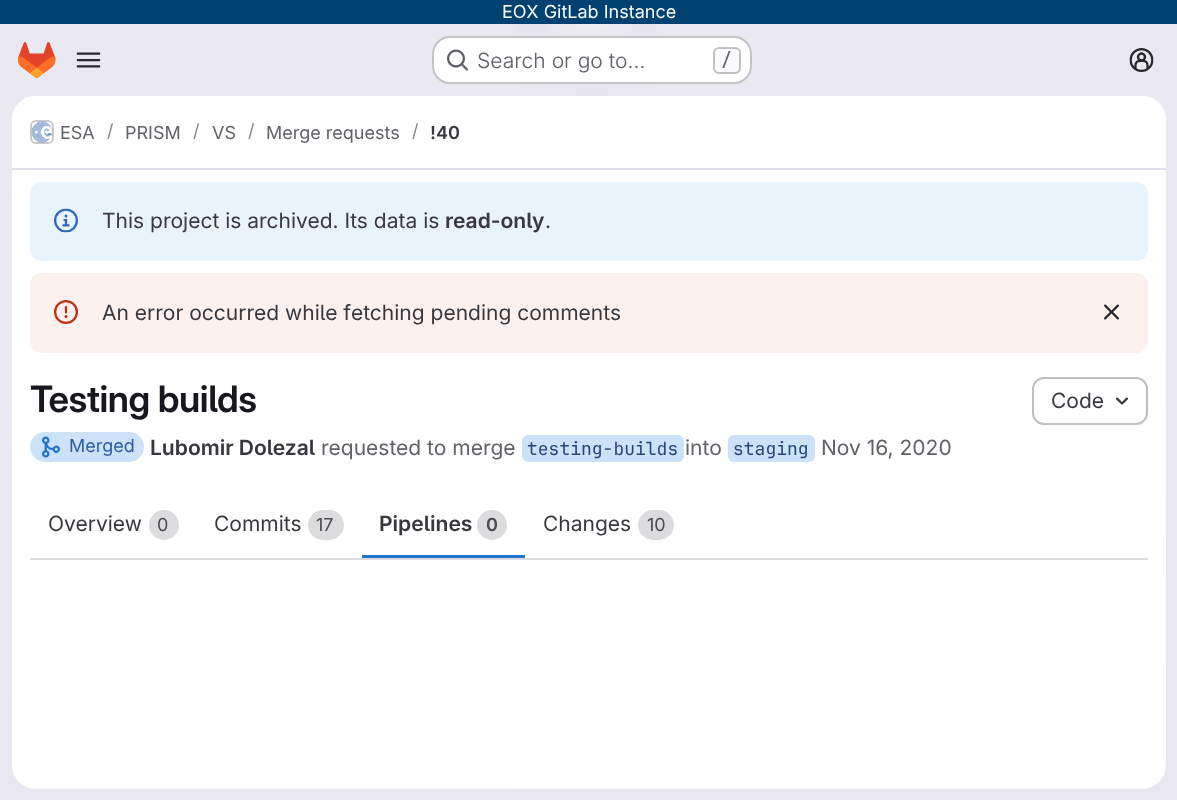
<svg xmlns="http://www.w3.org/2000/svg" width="1177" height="800">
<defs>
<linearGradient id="g1" gradientUnits="userSpaceOnUse" x1="675" y1="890" x2="503" y2="-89"><stop offset="0" stop-color="#e8e6f0"/><stop offset="0.7" stop-color="#eae9f2"/></linearGradient>
<radialGradient id="g2" gradientUnits="userSpaceOnUse" cx="0" cy="0" r="1" gradientTransform="matrix(589 0 0 801 589 0)"><stop offset="0" stop-color="#e4e2ed"/><stop offset="0.18" stop-color="#e4e2ed" stop-opacity="0"/></radialGradient>
<radialGradient id="g3" gradientUnits="userSpaceOnUse" cx="0" cy="0" r="1" gradientTransform="matrix(589 0 0 801 589 0)"><stop offset="0" stop-color="#e4e2ec"/><stop offset="0.13" stop-color="#e4e2ec" stop-opacity="0"/></radialGradient>
<radialGradient id="g4" gradientUnits="userSpaceOnUse" cx="589" cy="0" r="994"><stop offset="0" stop-color="#fff" stop-opacity="0.6"/><stop offset="0.06" stop-color="#fff" stop-opacity="0"/></radialGradient>
</defs>
<rect width="100%" height="100%" fill="#fff"/>
<rect y="24" width="1177" height="776" fill="url(#g1)"/>
<rect x="515" y="24" width="148" height="72" fill="url(#g2)"/>
<rect x="568" y="25" width="42" height="15" fill="url(#g3)"/>
<rect x="545" y="24" width="88" height="12" fill="url(#g4)"/>
<rect width="1177" height="24" fill="#004170"/>
<text x="502" y="18" style="font-family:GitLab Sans;font-size:18px;fill:#fff">EOX GitLab Instance</text>
<image x="18" y="42" width="38" height="36" href="media/1.png"/>
<image x="76" y="52" width="25" height="16" href="media/2.png"/>
<rect x="432" y="36" width="320" height="48" rx="18" fill="#fff"/>
<rect x="433" y="37" width="318" height="46" rx="17" fill="none" stroke="#0505063d" stroke-width="2"/>
<image x="447" y="49" width="21" height="22" href="media/3.png"/>
<text x="477" y="68" style="font-family:GitLab Sans;font-size:21px;font-weight:300;fill:#626168">Search or go to…</text>
<rect x="714" y="48" width="26" height="25" rx="5" fill="#fbfafd" stroke="#bfbfc3" stroke-width="2"/>
<text x="721" y="66" style="font-family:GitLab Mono;font-size:18px;font-weight:500;fill:#626168">/</text>
<image x="1129" y="48" width="25" height="24" href="media/4.png"/>
<rect x="12" y="96" width="1154" height="693" rx="24" fill="#fff"/>
<path d="M36 96h1106c13.5 0 24 10.5 24 24v50h-1154v-50c0-13.5 10.5-24 24-24z" fill="#fff"/>
<rect x="12" y="168" width="1154" height="2" fill="#e1dfec"/>
<rect x="31" y="121" width="22" height="22" rx="5" fill="none" stroke="#dcdcde" stroke-width="2"/>
<image x="31" y="121" width="22" height="22" href="media/5.png"/>
<rect x="31" y="121" width="22" height="22" rx="5" fill="none" stroke="#05050614" stroke-width="2"/>
<text x="60" y="139" style="font-family:GitLab Sans;font-size:18px;fill:#626168">ESA</text>
<text x="107" y="137" style="font-family:GitLab Sans;font-size:18px;fill:#89888d">/</text>
<text x="125" y="139" style="font-family:GitLab Sans;font-size:18px;fill:#626168">PRISM</text>
<text x="193" y="137" style="font-family:GitLab Sans;font-size:18px;fill:#89888d">/</text>
<text x="212" y="139" style="font-family:GitLab Sans;font-size:18px;fill:#626168">VS</text>
<text x="248" y="137" style="font-family:GitLab Sans;font-size:18px;fill:#89888d">/</text>
<text x="266" y="139" style="font-family:GitLab Sans;font-size:18px;fill:#626168">Merge requests</text>
<text x="412" y="137" style="font-family:GitLab Sans;font-size:18px;fill:#89888d">/</text>
<text x="430" y="139" style="font-family:'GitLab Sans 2';font-size:18px;font-weight:600;fill:#3a383f">!40</text>
<rect x="30" y="182" width="1118" height="79" rx="12" fill="#e9f3fc"/>
<image x="54" y="208" width="24" height="25" href="media/6.png"/>
<text x="102" y="228" style="font-family:GitLab Sans;font-size:21px;fill:#3a383f">This project is archived. Its data is</text>
<text x="445" y="228" style="font-family:'GitLab Sans 2';font-size:21px;font-weight:600;fill:#3a383f">read-only</text>
<text x="545" y="228" style="font-family:GitLab Sans;font-size:21px;fill:#3a383f">.</text>
<rect x="30" y="273" width="1118" height="80" rx="12" fill="#fcf1ef"/>
<image x="54" y="300" width="24" height="24" href="media/7.png"/>
<text x="102" y="320" style="font-family:GitLab Sans;font-size:21px;fill:#3a383f">An error occurred while fetching pending comments</text>
<image x="1104" y="304" width="15" height="16" href="media/8.png"/>
<text x="30" y="412" style="font-family:GitLab Sans;font-size:36.5px;font-weight:600;letter-spacing:-0.4px;fill:#18171d">Testing builds</text>
<rect x="1033" y="378" width="114" height="46" rx="11" fill="none" stroke="#bfbfc3" stroke-width="2"/>
<text x="1051" y="408" style="font-family:GitLab Sans;font-size:21px;fill:#3a383f">Code</text>
<image x="1116" y="397" width="12" height="8" href="media/9.png"/>
<rect x="30" y="558" width="1118" height="2" fill="#dcdcde"/>
<rect x="30" y="432" width="114" height="30" rx="15" fill="#cbe2f9"/>
<image x="42" y="436" width="18" height="22" href="media/10.png"/>
<text x="69" y="452" style="font-family:GitLab Sans;font-size:18px;fill:#2f5ca0">Merged</text>
<text x="150" y="455" style="font-family:'GitLab Sans 2';font-size:21px;font-weight:600;fill:#3a383f">Lubomir Dolezal</text>
<text x="321" y="455" style="font-family:GitLab Sans;font-size:21px;fill:#626168">requested to merge</text>
<rect x="522" y="435" width="162" height="27" rx="6" fill="#cbe2f9"/>
<text x="527" y="455" style="font-family:GitLab Mono;font-size:18px;fill:#284779">testing-builds</text>
<text x="685" y="455" style="font-family:GitLab Sans;font-size:21px;fill:#626168">into</text>
<rect x="728" y="435" width="87" height="27" rx="6" fill="#cbe2f9"/>
<text x="733" y="455" style="font-family:GitLab Mono;font-size:18px;fill:#284779">staging</text>
<text x="821" y="455" style="font-family:GitLab Sans;font-size:21px;fill:#626168">Nov 16, 2020</text>
<text x="48" y="531" style="font-family:GitLab Sans;font-size:21px;fill:#3a383f">Overview</text>
<circle cx="164" cy="525" r="15" fill="#dcdcde"/>
<text x="157" y="531" style="font-family:GitLab Sans;font-size:18px;fill:#4c4b51">0</text>
<text x="214" y="531" style="font-family:GitLab Sans;font-size:21px;fill:#3a383f">Commits</text>
<rect x="308" y="510" width="36" height="30" rx="15" fill="#dcdcde"/>
<text x="316" y="531" style="font-family:GitLab Sans;font-size:18px;fill:#4c4b51">17</text>
<rect x="362" y="555" width="163" height="3" fill="#1f75cb"/>
<text x="379" y="531" style="font-family:'GitLab Sans 2';font-size:21px;font-weight:600;fill:#3a383f">Pipelines</text>
<circle cx="492" cy="525" r="15" fill="#dcdcde"/>
<text x="486" y="531" style="font-family:'GitLab Sans 2';font-size:18px;font-weight:600;fill:#4c4b51">0</text>
<text x="543" y="531" style="font-family:GitLab Sans;font-size:21px;fill:#3a383f">Changes</text>
<rect x="638" y="510" width="36" height="30" rx="15" fill="#dcdcde"/>
<text x="647" y="531" style="font-family:GitLab Sans;font-size:18px;fill:#4c4b51">10</text>
</svg>
